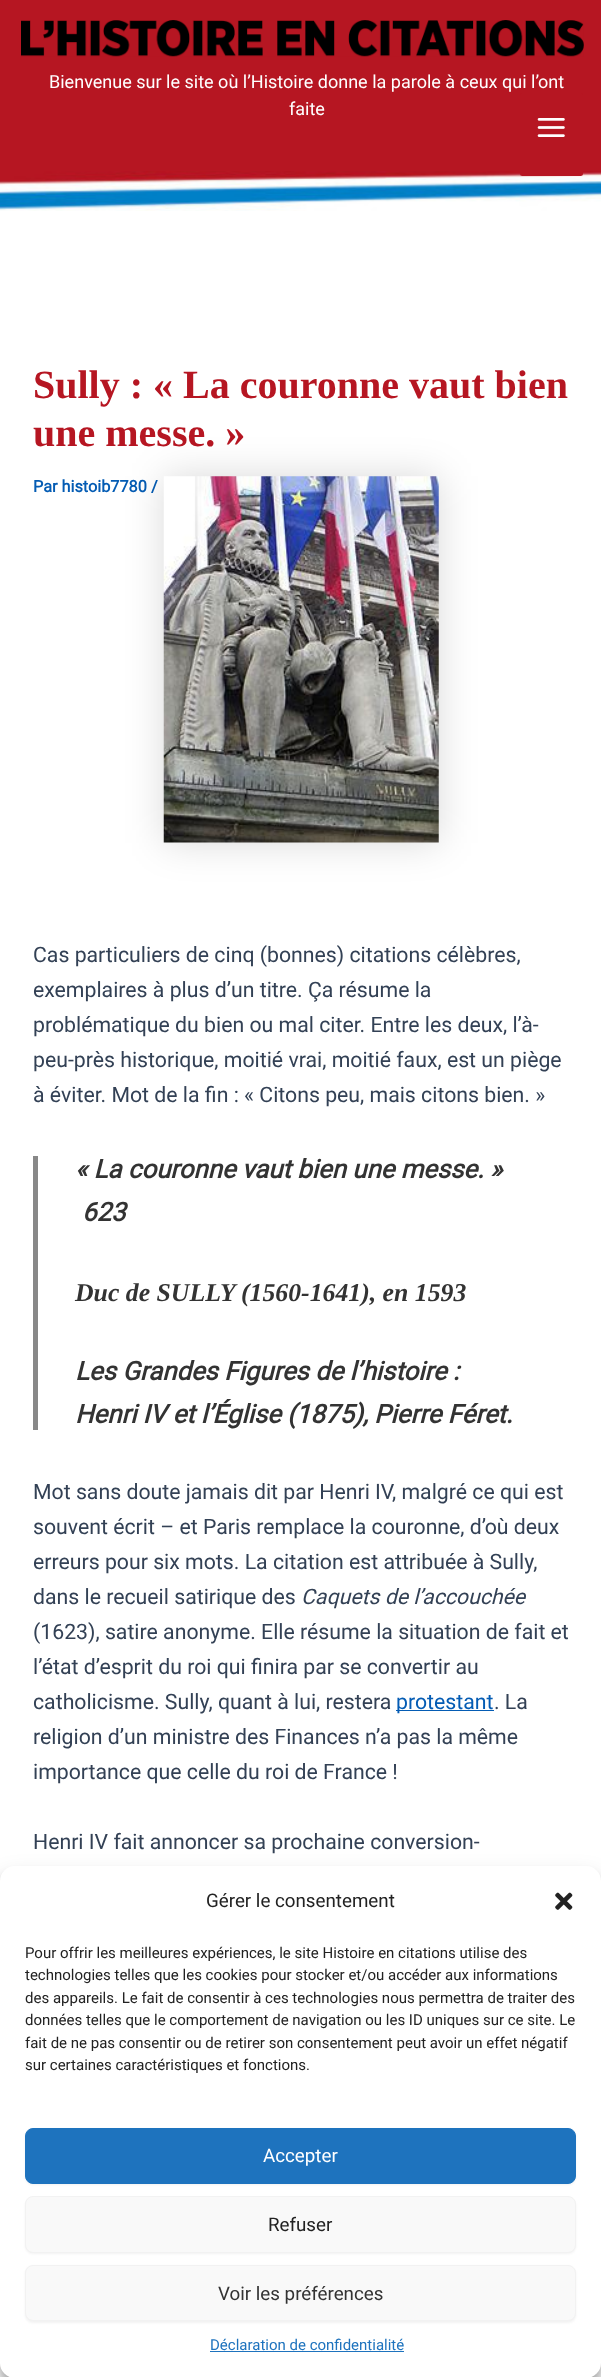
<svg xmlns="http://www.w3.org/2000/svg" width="601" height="2377">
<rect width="100%" height="100%" fill="#fff"/>
<image x="0" y="0" width="601" height="211" href="media/1.png"/>
<image x="21" y="20" width="563" height="37" href="media/2.png"/>
<text x="49" y="88" style="font-family:Roboto;font-size:18.05px;fill:#fff">Bienvenue sur le site où l’Histoire donne la parole à ceux qui l’ont</text>
<text x="289" y="115" style="font-family:Roboto;font-size:18.05px;fill:#fff">faite</text>
<rect x="520" y="93" width="63" height="83" rx="2.5" fill="#b61622"/>
<image x="537" y="118" width="28" height="19" href="media/3.png"/>
<text x="33" y="398" style="font-family:Liberation Serif;font-size:40px;font-weight:bold;fill:#b61622">Sully : « La couronne vaut bien</text>
<text x="33" y="446" style="font-family:Liberation Serif;font-size:40px;font-weight:bold;fill:#b61622">une messe. »</text>
<text x="33" y="492" style="font-family:Roboto;font-size:16.25px;font-weight:bold;fill:#045cb4">Par histoib7780 /</text>
<rect x="164" y="476" width="275" height="367" fill="#00000026" filter="blur(19px)"/>
<image x="163" y="476" width="276" height="367" href="media/4.png"/>
<text x="33" y="962" style="font-family:Roboto;font-size:21.25px;fill:#334155">Cas particuliers de cinq (bonnes) citations célèbres,</text>
<text x="33" y="997" style="font-family:Roboto;font-size:21.25px;fill:#334155">exemplaires à plus d’un titre. Ça résume la</text>
<text x="33" y="1032" style="font-family:Roboto;font-size:21.25px;fill:#334155">problématique du bien ou mal citer. Entre les deux, l’à-</text>
<text x="33" y="1067" style="font-family:Roboto;font-size:21.25px;fill:#334155">peu-près historique, moitié vrai, moitié faux, est un piège</text>
<text x="33" y="1102" style="font-family:Roboto;font-size:21.25px;fill:#334155">à éviter. Mot de la fin : « Citons peu, mais citons bien. »</text>
<rect x="33" y="1156" width="5" height="274" fill="#888"/>
<text x="75" y="1178" style="font-family:Roboto;font-size:25.75px;font-weight:bold;font-style:italic;fill:#333">« La couronne vaut bien une messe. »</text>
<text x="82" y="1221" style="font-family:Roboto;font-size:25.75px;font-weight:bold;font-style:italic;fill:#333">623</text>
<text x="75" y="1301" style="font-family:Liberation Serif;font-size:25.75px;font-weight:bold;font-style:italic;fill:#333">Duc de SULLY</text>
<text x="241" y="1301" style="font-family:Liberation Serif;font-size:25.75px;font-weight:bold;font-style:italic;fill:#333">(1560-1641), en 1593</text>
<text x="75" y="1380" style="font-family:Roboto;font-size:25.75px;font-weight:bold;font-style:italic;fill:#333">Les Grandes Figures de l’histoire :</text>
<text x="75" y="1423" style="font-family:Roboto;font-size:25.75px;font-weight:bold;font-style:italic;fill:#333">Henri IV et l’Église (1875), Pierre Féret.</text>
<text x="33" y="1499" style="font-family:Roboto;font-size:21.25px;fill:#334155">Mot sans doute jamais dit par Henri IV</text>
<text x="392" y="1499" style="font-family:Roboto;font-size:21.25px;fill:#334155">, malgré ce qui est</text>
<text x="33" y="1534" style="font-family:Roboto;font-size:21.25px;fill:#334155">souvent écrit – et Paris remplace la couronne, d’où deux</text>
<text x="33" y="1569" style="font-family:Roboto;font-size:21.25px;fill:#334155">erreurs pour six mots. La citation est attribuée à Sully,</text>
<text x="33" y="1604" style="font-family:Roboto;font-size:21.25px;fill:#334155">dans le recueil satirique des</text>
<text x="301" y="1604" style="font-family:Roboto;font-size:21.25px;font-style:italic;fill:#334155">Caquets de l’accouchée</text>
<text x="33" y="1639" style="font-family:Roboto;font-size:21.25px;fill:#334155">(1623), satire anonyme. Elle résume la situation de fait et</text>
<text x="33" y="1674" style="font-family:Roboto;font-size:21.25px;fill:#334155">l’état d’esprit du roi qui finira par se convertir au</text>
<text x="33" y="1709" style="font-family:Roboto;font-size:21.25px;fill:#334155">catholicisme. Sully, quant à lui, restera</text>
<rect x="396" y="1710" width="98" height="1" fill="#045cb4"/>
<text x="396" y="1709" style="font-family:Roboto;font-size:21.25px;fill:#045cb4">protestant</text>
<text x="494" y="1709" style="font-family:Roboto;font-size:21.25px;fill:#334155">. La</text>
<text x="33" y="1744" style="font-family:Roboto;font-size:21.25px;fill:#334155">religion d’un ministre des Finances n’a pas la même</text>
<text x="33" y="1779" style="font-family:Roboto;font-size:21.25px;fill:#334155">importance que celle du roi de France !</text>
<text x="33" y="1849" style="font-family:Roboto;font-size:21.25px;fill:#334155">Henri IV fait annoncer sa prochaine conversion-</text>
<rect y="1874" width="601" height="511" rx="15" fill="#0000003b" filter="blur(4px)"/>
<rect y="1879" width="601" height="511" rx="15" fill="#00000030" filter="blur(12.5px)"/>
<rect y="1866" width="601" height="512" rx="15" fill="#fff"/>
<text x="206" y="1907" style="font-family:Roboto;font-size:18.75px;fill:#222">Gérer le consentement</text>
<image x="555" y="1892" width="18" height="18" href="media/5.png"/>
<text x="25" y="1958" style="font-family:Roboto;font-size:15px;fill:#222">Pour offrir les meilleures expériences, le site Histoire en citations utilise des</text>
<text x="25" y="1980" style="font-family:Roboto;font-size:15px;fill:#222">technologies telles que les cookies pour stocker et/ou accéder aux informations</text>
<text x="25" y="2003" style="font-family:Roboto;font-size:15px;fill:#222">des appareils. Le fait de consentir à ces technologies nous permettra de traiter des</text>
<text x="25" y="2025" style="font-family:Roboto;font-size:15px;fill:#222">données telles que le comportement de navigation ou les ID uniques sur ce site. Le</text>
<text x="25" y="2048" style="font-family:Roboto;font-size:15px;fill:#222">fait de ne pas consentir ou de retirer son consentement peut avoir un effet négatif</text>
<text x="25" y="2070" style="font-family:Roboto;font-size:15px;fill:#222">sur certaines caractéristiques et fonctions.</text>
<rect x="25" y="2129" width="551" height="56" rx="8" fill="#0000000d" filter="blur(1px)"/>
<rect x="25.5" y="2128.5" width="550" height="55" rx="7.5" fill="#1e73be" stroke="#1e73be"/>
<text x="263" y="2162" style="font-family:Roboto;font-size:18.75px;fill:#fff">Accepter</text>
<rect x="25" y="2198" width="551" height="56" rx="8" fill="#0000000d" filter="blur(1px)"/>
<rect x="25.5" y="2196.5" width="550" height="56" rx="7.5" fill="#f9f9f9" stroke="#f2f2f2"/>
<text x="268" y="2231" style="font-family:Roboto;font-size:18.75px;fill:#222">Refuser</text>
<rect x="25" y="2266" width="551" height="57" rx="8" fill="#0000000d" filter="blur(1px)"/>
<rect x="25.5" y="2265.5" width="550" height="55" rx="7.5" fill="#f9f9f9" stroke="#f2f2f2"/>
<text x="218" y="2300" style="font-family:Roboto;font-size:18.75px;fill:#333">Voir les préférences</text>
<text x="210" y="2350" style="font-family:Roboto;font-size:15px;fill:#1e73be">Déclaration de confidentialité</text>
<rect x="210" y="2351" width="194" height="1" fill="#1e73be"/>
</svg>
